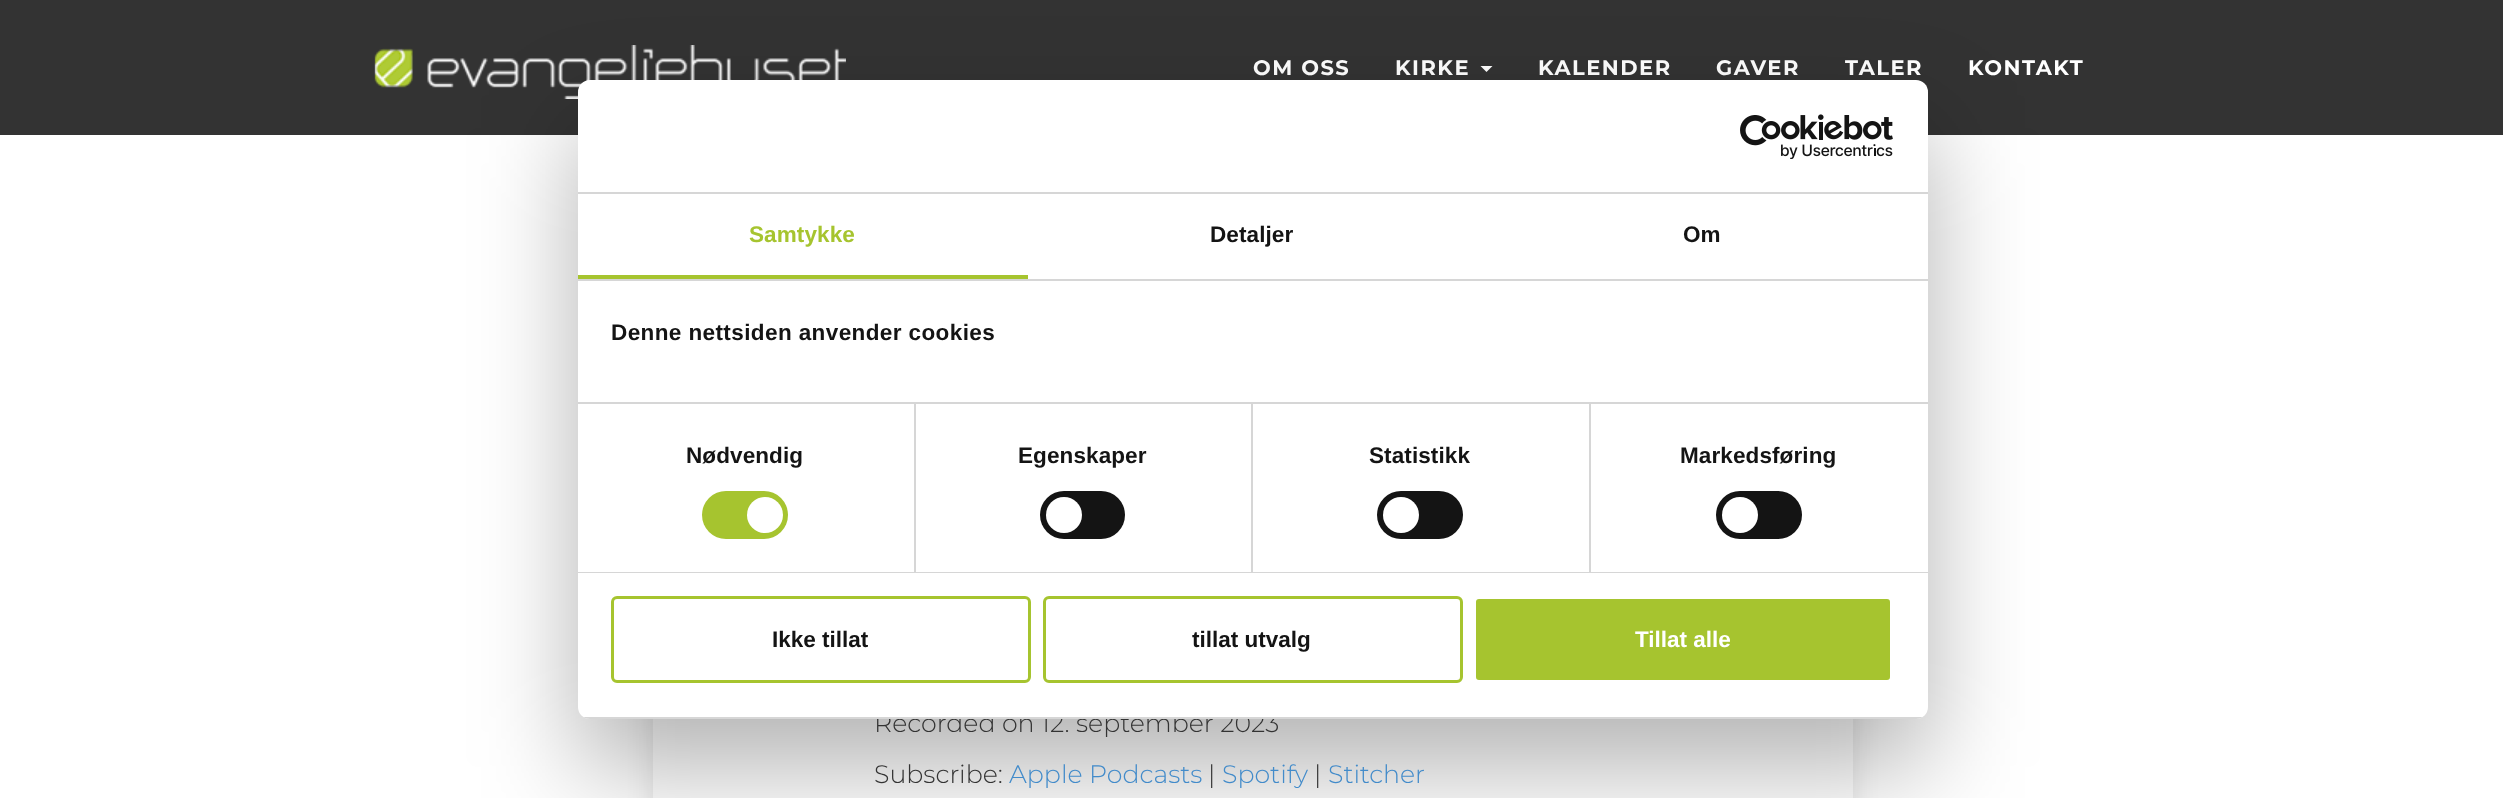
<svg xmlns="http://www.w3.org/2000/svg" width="2503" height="798">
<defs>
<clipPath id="clip1"><rect x="578" y="80" width="1350" height="639" rx="12"/></clipPath>
</defs>
<rect width="100%" height="100%" fill="#fff"/>
<rect x="653" y="155" width="1200" height="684" fill="#0000001a" filter="blur(13.5px)"/>
<rect width="2503" height="135" fill="#333"/>
<image x="374" y="45" width="472" height="54" href="media/1.png"/>
<text x="1253" y="75" style="font-family:Montserrat;font-size:21px;font-weight:bold;letter-spacing:1.5px;fill:#fff">OM OSS</text>
<text x="1395" y="75" style="font-family:Montserrat;font-size:21px;font-weight:bold;letter-spacing:1.5px;fill:#fff">KIRKE</text>
<path d="M1480.5 66h12l-6 6z" fill="#fff"/>
<text x="1538" y="75" style="font-family:Montserrat;font-size:21px;font-weight:bold;letter-spacing:1.5px;fill:#fff">KALENDER</text>
<text x="1716" y="75" style="font-family:Montserrat;font-size:21px;font-weight:bold;letter-spacing:1.5px;fill:#fff">GAVER</text>
<text x="1845" y="75" style="font-family:Montserrat;font-size:21px;font-weight:bold;letter-spacing:1.5px;fill:#fff">TALER</text>
<text x="1968" y="75" style="font-family:Montserrat;font-size:21px;font-weight:bold;letter-spacing:1.5px;fill:#fff">KONTAKT</text>
<rect x="653" y="719" width="1200" height="79" fill="#fff"/>
<rect x="578" y="128" width="1350" height="639" rx="12" fill="#0000004d" filter="blur(51px)"/>
<text x="874" y="732" style="font-family:Montserrat;font-size:25.25px;font-weight:300;fill:#333">Recorded on 12. september 2023</text>
<rect x="578" y="80" width="1350" height="639" rx="12" fill="#fff"/>
<rect x="578" y="192" width="1350" height="2" fill="#d6d6d6"/>
<image x="1740" y="114" width="153" height="45" href="media/2.png"/>
<rect x="578" y="279" width="1350" height="2" fill="#d6d6d6"/>
<rect x="578" y="275" width="450" height="4" fill="#a6c42f"/>
<text x="749" y="242" style="font-family:Liberation Sans;font-size:22.5px;font-weight:bold;letter-spacing:0.1px;fill:#a6c42f">Samtykke</text>
<text x="1210" y="242" style="font-family:Liberation Sans;font-size:22.5px;font-weight:bold;letter-spacing:0.1px;fill:#141414">Detaljer</text>
<text x="1683" y="242" style="font-family:Liberation Sans;font-size:22.5px;font-weight:bold;letter-spacing:0.1px;fill:#141414">Om</text>
<rect x="578" y="402" width="1350" height="2" fill="#d6d6d6"/>
<text x="611" y="340" style="font-family:Liberation Sans;font-size:22.5px;font-weight:bold;letter-spacing:0.4px;fill:#141414">Denne nettsiden anvender cookies</text>
<rect x="578" y="572" width="1350" height="1" fill="#d6d6d6"/>
<rect x="914" y="404" width="2" height="168" fill="#d6d6d6"/>
<text x="686" y="463" style="font-family:Liberation Sans;font-size:22.5px;font-weight:bold;letter-spacing:0.1px;fill:#141414">Nødvendig</text>
<rect x="702" y="491" width="86" height="48" rx="24" fill="#a6c42f"/>
<circle cx="765" cy="515" r="18" fill="#fff"/>
<rect x="1251" y="404" width="2" height="168" fill="#d6d6d6"/>
<text x="1018" y="463" style="font-family:Liberation Sans;font-size:22.5px;font-weight:bold;letter-spacing:0.1px;fill:#141414">Egenskaper</text>
<rect x="1040" y="491" width="85" height="48" rx="24" fill="#141414"/>
<circle cx="1064" cy="515" r="18" fill="#fff"/>
<rect x="1589" y="404" width="2" height="168" fill="#d6d6d6"/>
<text x="1369" y="463" style="font-family:Liberation Sans;font-size:22.5px;font-weight:bold;letter-spacing:0.1px;fill:#141414">Statistikk</text>
<rect x="1377" y="491" width="86" height="48" rx="24" fill="#141414"/>
<circle cx="1401" cy="515" r="18" fill="#fff"/>
<text x="1680" y="463" style="font-family:Liberation Sans;font-size:22.5px;font-weight:bold;letter-spacing:0.1px;fill:#141414">Markedsføring</text>
<rect x="1716" y="491" width="86" height="48" rx="24" fill="#141414"/>
<circle cx="1740" cy="515" r="18" fill="#fff"/>
<g clip-path="url(#clip1)">
<rect x="578" y="717" width="1350" height="2" fill="#d6d6d6"/>
</g>
<rect x="612.5" y="597.5" width="417" height="84" rx="4.5" fill="none" stroke="#a6c42f" stroke-width="3"/>
<text x="772" y="647" style="font-family:Liberation Sans;font-size:22.5px;font-weight:bold;fill:#141414">Ikke tillat</text>
<rect x="1044.5" y="597.5" width="417" height="84" rx="4.5" fill="none" stroke="#a6c42f" stroke-width="3"/>
<text x="1192" y="647" style="font-family:Liberation Sans;font-size:22.5px;font-weight:bold;fill:#141414">tillat utvalg</text>
<rect x="1474.5" y="597.5" width="417" height="84" rx="4.5" fill="#a6c42f" stroke="#fff" stroke-width="3"/>
<text x="1635" y="647" style="font-family:Liberation Sans;font-size:22.5px;font-weight:bold;fill:#fff">Tillat alle</text>
<text x="874" y="783" style="font-family:Montserrat;font-size:25.25px;font-weight:300;fill:#333">Subscribe:</text>
<text x="1009" y="783" style="font-family:Montserrat;font-size:25.25px;font-weight:300;fill:#428bca">Apple Podcasts</text>
<text x="1208" y="783" style="font-family:Montserrat;font-size:25.25px;font-weight:300;fill:#333">|</text>
<text x="1222" y="783" style="font-family:Montserrat;font-size:25.25px;font-weight:300;fill:#428bca">Spotify</text>
<text x="1314" y="783" style="font-family:Montserrat;font-size:25.25px;font-weight:300;fill:#333">|</text>
<text x="1328" y="783" style="font-family:Montserrat;font-size:25.25px;font-weight:300;fill:#428bca">Stitcher</text>
</svg>
